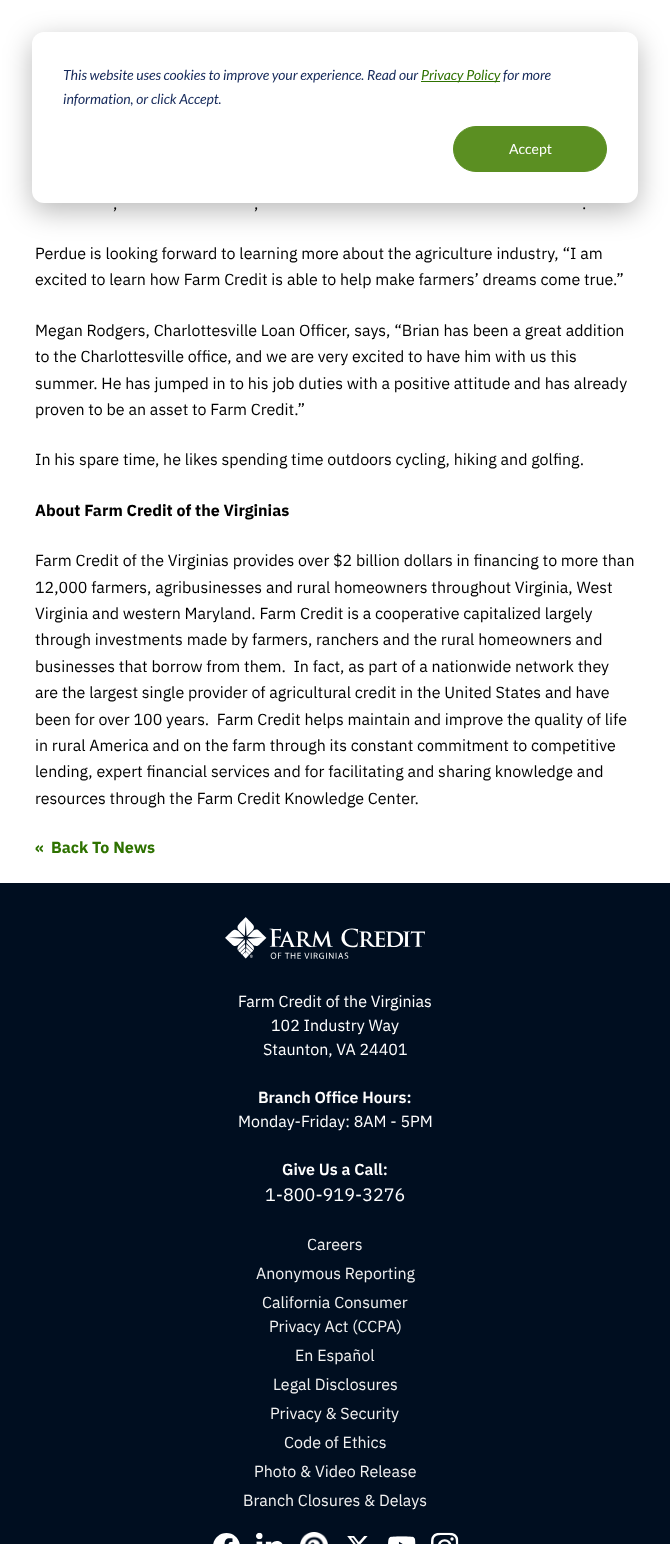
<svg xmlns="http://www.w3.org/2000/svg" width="670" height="1544">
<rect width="100%" height="100%" fill="#fff"/>
<rect x="32" y="40" width="606" height="171" rx="12" fill="#00000047" filter="blur(14px)"/>
<rect x="32" y="32" width="606" height="171" rx="12" fill="#fff"/>
<text x="63" y="80" style="font-family:Lato;font-size:14px;font-style:italic;fill:#15295a">This website uses cookies to improve your experience. Read our</text>
<rect x="421" y="81" width="79" height="1" fill="#2e7200"/>
<text x="421" y="80" style="font-family:Lato;font-size:14px;font-style:italic;fill:#2e7200">Privacy Policy</text>
<text x="503" y="80" style="font-family:Lato;font-size:14px;font-style:italic;fill:#15295a">for more</text>
<text x="63" y="104" style="font-family:Lato;font-size:14px;font-style:italic;fill:#15295a">information, or click Accept.</text>
<rect x="453.5" y="126.5" width="153" height="45" rx="22.5" fill="#5b8f22" stroke="#5b8f22"/>
<text x="509" y="154" style="font-family:Lato;font-size:14px;fill:#fff">Accept</text>
<text x="113" y="209" style="font-family:IBM Plex Sans;font-size:16px;fill:#000">,</text>
<text x="254" y="209" style="font-family:IBM Plex Sans;font-size:16px;fill:#000">,</text>
<text x="582" y="209" style="font-family:IBM Plex Sans;font-size:16px;fill:#000">.</text>
<text x="35" y="259" style="font-family:IBM Plex Sans;font-size:16px;fill:#000">Perdue is looking forward to learning more about the agriculture industry, “I am</text>
<text x="35" y="285" style="font-family:IBM Plex Sans;font-size:16px;fill:#000">excited to learn how Farm Credit is able to help make farmers’ dreams come true.”</text>
<text x="35" y="336" style="font-family:IBM Plex Sans;font-size:16px;fill:#000">Megan Rodgers, Charlottesville Loan Officer, says, “Brian has been a great addition</text>
<text x="35" y="362" style="font-family:IBM Plex Sans;font-size:16px;fill:#000">to the Charlottesville office, and we are very excited to have him with us this</text>
<text x="35" y="389" style="font-family:IBM Plex Sans;font-size:16px;fill:#000">summer. He has jumped in to his job duties with a positive attitude and has already</text>
<text x="35" y="415" style="font-family:IBM Plex Sans;font-size:16px;fill:#000">proven to be an asset to Farm Credit.”</text>
<text x="35" y="465" style="font-family:IBM Plex Sans;font-size:16px;fill:#000">In his spare time, he likes spending time outdoors cycling, hiking and golfing.</text>
<text x="35" y="516" style="font-family:IBM Plex Sans;font-size:16px;font-weight:bold;fill:#000">About Farm Credit of the Virginias</text>
<text x="35" y="566" style="font-family:IBM Plex Sans;font-size:16px;fill:#000">Farm Credit of the Virginias provides over $2 billion dollars in financing to more than</text>
<text x="35" y="593" style="font-family:IBM Plex Sans;font-size:16px;fill:#000">12,000 farmers, agribusinesses and rural homeowners throughout Virginia, West</text>
<text x="35" y="619" style="font-family:IBM Plex Sans;font-size:16px;fill:#000">Virginia and western Maryland. Farm Credit is a cooperative capitalized largely</text>
<text x="35" y="645" style="font-family:IBM Plex Sans;font-size:16px;fill:#000">through investments made by farmers, ranchers and the rural homeowners and</text>
<text x="35" y="672" style="font-family:IBM Plex Sans;font-size:16px;fill:#000" xml:space="preserve">businesses that borrow from them.  In fact, as part of a nationwide network they</text>
<text x="35" y="698" style="font-family:IBM Plex Sans;font-size:16px;fill:#000">are the largest single provider of agricultural credit in the United States and have</text>
<text x="35" y="725" style="font-family:IBM Plex Sans;font-size:16px;fill:#000" xml:space="preserve">been for over 100 years.  Farm Credit helps maintain and improve the quality of life</text>
<text x="35" y="751" style="font-family:IBM Plex Sans;font-size:16px;fill:#000">in rural America and on the farm through its constant commitment to competitive</text>
<text x="35" y="777" style="font-family:IBM Plex Sans;font-size:16px;fill:#000">lending, expert financial services and for facilitating and sharing knowledge and</text>
<text x="35" y="804" style="font-family:IBM Plex Sans;font-size:16px;fill:#000">resources through the Farm Credit Knowledge Center.</text>
<text x="35" y="853" style="font-family:IBM Plex Sans;font-size:16px;font-weight:bold;fill:#2e7200">«</text>
<text x="51" y="853" style="font-family:IBM Plex Sans;font-size:16px;font-weight:bold;fill:#2e7200">Back To News</text>
<rect y="883" width="670" height="661" fill="#000e20"/>
<image x="225" y="917" width="200" height="42" href="media/1.png"/>
<text x="238" y="1007" style="font-family:IBM Plex Sans;font-size:16px;fill:#fff">Farm Credit of the Virginias</text>
<text x="271" y="1031" style="font-family:IBM Plex Sans;font-size:16px;fill:#fff">102 Industry Way</text>
<text x="263" y="1055" style="font-family:IBM Plex Sans;font-size:16px;fill:#fff">Staunton, VA 24401</text>
<text x="258" y="1103" style="font-family:IBM Plex Sans;font-size:16px;font-weight:600;fill:#fff">Branch Office Hours:</text>
<text x="238" y="1127" style="font-family:IBM Plex Sans;font-size:16px;fill:#fff">Monday-Friday: 8AM - 5PM</text>
<text x="282" y="1175" style="font-family:IBM Plex Sans;font-size:16px;font-weight:600;fill:#fff">Give Us a Call:</text>
<text x="265" y="1201" style="font-family:IBM Plex Sans;font-size:18px;fill:#fff">1-800-919-3276</text>
<text x="307" y="1250" style="font-family:IBM Plex Sans;font-size:16px;fill:#f1f1f1">Careers</text>
<text x="256" y="1279" style="font-family:IBM Plex Sans;font-size:16px;fill:#f1f1f1">Anonymous Reporting</text>
<text x="262" y="1308" style="font-family:IBM Plex Sans;font-size:16px;fill:#f1f1f1">California Consumer</text>
<text x="269" y="1332" style="font-family:IBM Plex Sans;font-size:16px;fill:#f1f1f1">Privacy Act (CCPA)</text>
<text x="295" y="1361" style="font-family:IBM Plex Sans;font-size:16px;fill:#f1f1f1">En Español</text>
<text x="273" y="1390" style="font-family:IBM Plex Sans;font-size:16px;fill:#f1f1f1">Legal Disclosures</text>
<text x="270" y="1419" style="font-family:IBM Plex Sans;font-size:16px;fill:#f1f1f1">Privacy &amp; Security</text>
<text x="284" y="1448" style="font-family:IBM Plex Sans;font-size:16px;fill:#f1f1f1">Code of Ethics</text>
<text x="254" y="1477" style="font-family:IBM Plex Sans;font-size:16px;fill:#f1f1f1">Photo &amp; Video Release</text>
<text x="243" y="1506" style="font-family:IBM Plex Sans;font-size:16px;fill:#f1f1f1">Branch Closures &amp; Delays</text>
<path d="M240 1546.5c0-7.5-6-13.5-13.5-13.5c-7.5 0-13.5 6-13.5 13.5c0 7 5 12.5 11.5 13.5v-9.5h-3.5v-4h3.5c0-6.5 1-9 8-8v3.5c-4 0-4 .5-4 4.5h4l-.5 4h-3.5v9.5c6.5-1 11.5-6.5 11.5-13.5" fill="#fff" fill-rule="evenodd"/>
<image x="256" y="1532" width="27" height="12" href="media/2.png"/>
<image x="300" y="1532" width="28" height="12" href="media/3.png"/>
<image x="347" y="1536" width="21" height="8" href="media/4.png"/>
<image x="388" y="1536" width="28" height="8" href="media/5.png"/>
<image x="431" y="1532" width="28" height="12" href="media/6.png"/>
</svg>
